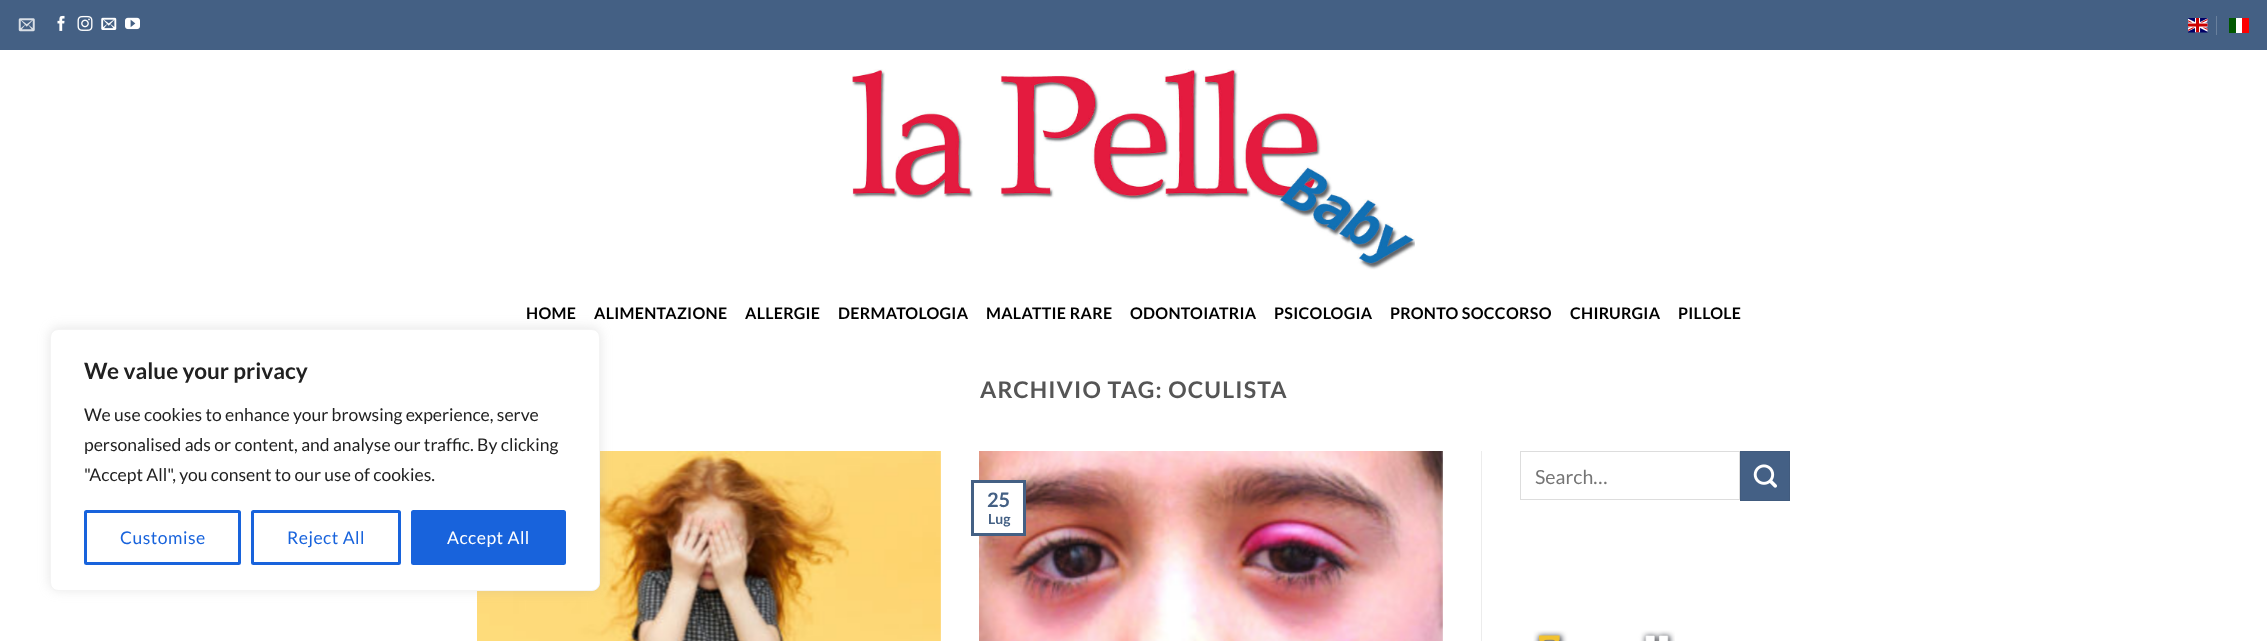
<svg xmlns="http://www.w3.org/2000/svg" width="2267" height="641">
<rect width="100%" height="100%" fill="#fff"/>
<image x="477" y="451" width="464" height="190" href="media/10.png"/>
<rect x="50" y="328" width="550" height="262" rx="8" fill="#acabab4d" filter="blur(6px)"/>
<rect x="50.5" y="329.5" width="549" height="261" rx="7.5" fill="#fff" stroke="#f4f4f4"/>
<text x="84" y="379" style="font-family:Lato;font-size:22.5px;font-weight:bold;fill:#212121">We value your privacy</text>
<text x="84" y="421" style="font-family:Lato;font-size:17.5px;fill:#212121">We use cookies to enhance your browsing experience, serve</text>
<text x="84" y="451" style="font-family:Lato;font-size:17.5px;fill:#212121">personalised ads or content, and analyse our traffic. By clicking</text>
<text x="84" y="481" style="font-family:Lato;font-size:17.5px;fill:#212121">"Accept All", you consent to our use of cookies.</text>
<rect x="85.5" y="511.5" width="154" height="52" rx="1" fill="none" stroke="#1863dc" stroke-width="3"/>
<text x="120" y="544" style="font-family:Lato;font-size:17.5px;letter-spacing:0.5px;fill:#1863dc">Customise</text>
<rect x="252.5" y="511.5" width="147" height="52" rx="1" fill="none" stroke="#1863dc" stroke-width="3"/>
<text x="287" y="544" style="font-family:Lato;font-size:17.5px;letter-spacing:0.5px;fill:#1863dc">Reject All</text>
<rect x="412.5" y="511.5" width="152" height="52" rx="1" fill="#1863dc" stroke="#1863dc" stroke-width="3"/>
<text x="447" y="544" style="font-family:Lato;font-size:17.5px;letter-spacing:0.5px;fill:#fff">Accept All</text>
<rect width="2267" height="50" fill="#446084"/>
<image x="18" y="18" width="17" height="14" href="media/1.png"/>
<image x="57" y="15" width="8" height="16" href="media/2.png"/>
<image x="77" y="15" width="16" height="16" href="media/3.png"/>
<image x="101" y="17" width="16" height="13" href="media/4.png"/>
<image x="125" y="17" width="15" height="13" href="media/5.png"/>
<image x="2188" y="18" width="20" height="15" href="media/6.png"/>
<rect x="2216" y="16" width="1" height="19" fill="#69809d"/>
<rect x="2236" y="18" width="6" height="15" fill="#fff"/>
<rect x="2229" y="18" width="7" height="15" fill="#005700"/>
<rect x="2242" y="18" width="7" height="15" fill="#fc0000"/>
<image x="852" y="69" width="563" height="201" href="media/7.png"/>
<text x="526" y="319" style="font-family:Lato;font-size:16px;font-weight:bold;letter-spacing:0.3px;fill:#000">HOME</text>
<text x="594" y="319" style="font-family:Lato;font-size:16px;font-weight:bold;letter-spacing:0.3px;fill:#000">ALIMENTAZIONE</text>
<text x="745" y="319" style="font-family:Lato;font-size:16px;font-weight:bold;letter-spacing:0.3px;fill:#000">ALLERGIE</text>
<text x="838" y="319" style="font-family:Lato;font-size:16px;font-weight:bold;letter-spacing:0.3px;fill:#000">DERMATOLOGIA</text>
<text x="986" y="319" style="font-family:Lato;font-size:16px;font-weight:bold;letter-spacing:0.3px;fill:#000">MALATTIE RARE</text>
<text x="1130" y="319" style="font-family:Lato;font-size:16px;font-weight:bold;letter-spacing:0.3px;fill:#000">ODONTOIATRIA</text>
<text x="1274" y="319" style="font-family:Lato;font-size:16px;font-weight:bold;letter-spacing:0.3px;fill:#000">PSICOLOGIA</text>
<text x="1390" y="319" style="font-family:Lato;font-size:16px;font-weight:bold;letter-spacing:0.3px;fill:#000">PRONTO SOCCORSO</text>
<text x="1570" y="319" style="font-family:Lato;font-size:16px;font-weight:bold;letter-spacing:0.3px;fill:#000">CHIRURGIA</text>
<text x="1678" y="319" style="font-family:Lato;font-size:16px;font-weight:bold;letter-spacing:0.3px;fill:#000">PILLOLE</text>
<text x="980" y="398" style="font-family:Lato;font-size:23px;font-weight:bold;letter-spacing:1.15px;fill:#555">ARCHIVIO TAG: OCULISTA</text>
<rect x="1481" y="451" width="1" height="190" fill="#ececec"/>
<rect x="1520.5" y="451.5" width="219" height="48" fill="none" stroke="#ddd"/>
<text x="1535" y="484" style="font-family:Lato;font-size:19.5px;fill:#757575">Search…</text>
<rect x="1740.5" y="451.5" width="49" height="49" fill="#446085" stroke="#415b7e"/>
<image x="1753" y="464" width="24" height="24" href="media/8.png"/>
<image x="1533" y="630" width="142" height="11" href="media/9.png"/>
<image x="979" y="451" width="464" height="190" href="media/11.png"/>
<rect x="979" y="483" width="44" height="50" fill="#fff"/>
<rect x="972.5" y="481.5" width="52" height="53" fill="none" stroke="#446084" stroke-width="3"/>
<text x="987" y="507" style="font-family:Lato;font-size:20px;font-weight:bold;fill:#446084">25</text>
<text x="988" y="524" style="font-family:Lato;font-size:14px;font-weight:bold;fill:#446084">Lug</text>
</svg>
